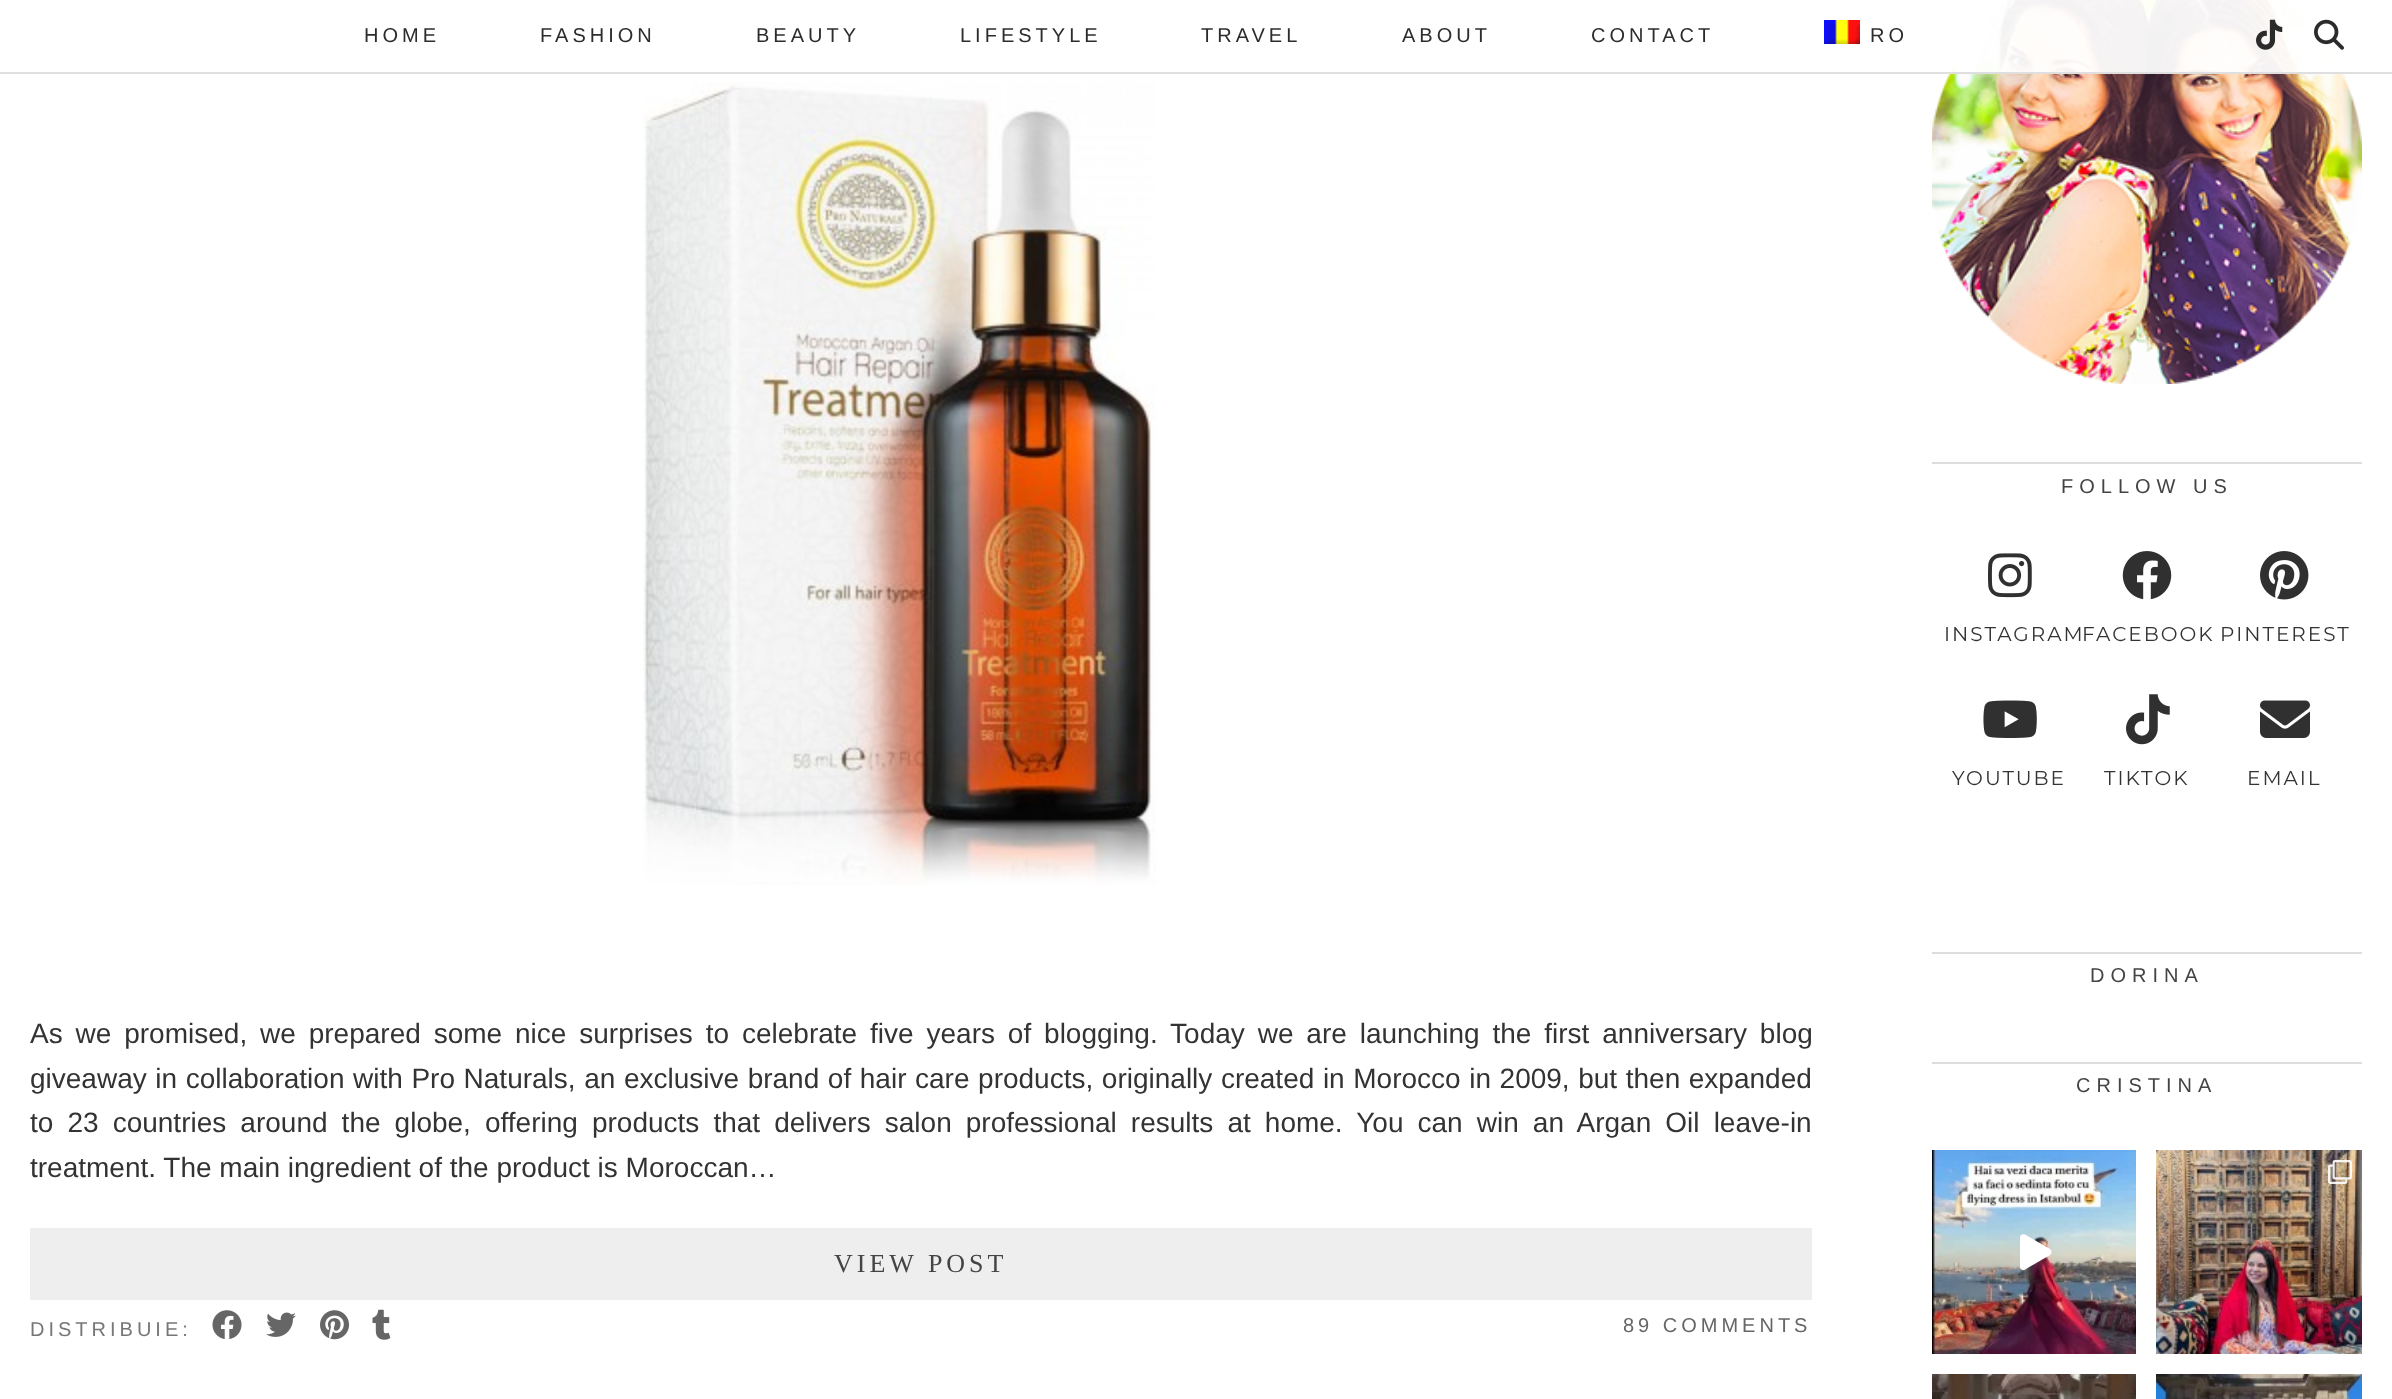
<svg xmlns="http://www.w3.org/2000/svg" width="2392" height="1399">
<rect width="100%" height="100%" fill="#fff"/>
<image x="1932" y="0" width="430" height="384" href="media/4.png"/>
<rect x="1948" width="396" height="74" fill="#fffffff0"/>
<rect y="72" width="2392" height="2" fill="#ddddddf0"/>
<text x="364" y="42" style="font-family:Liberation Sans;font-size:20px;letter-spacing:4px;fill:#2c2c2c">HOME</text>
<text x="540" y="42" style="font-family:Liberation Sans;font-size:20px;letter-spacing:4px;fill:#2c2c2c">FASHION</text>
<text x="756" y="42" style="font-family:Liberation Sans;font-size:20px;letter-spacing:4px;fill:#2c2c2c">BEAUTY</text>
<text x="960" y="42" style="font-family:Liberation Sans;font-size:20px;letter-spacing:4px;fill:#2c2c2c">LIFESTYLE</text>
<text x="1201" y="42" style="font-family:Liberation Sans;font-size:20px;letter-spacing:4px;fill:#2c2c2c">TRAVEL</text>
<text x="1402" y="42" style="font-family:Liberation Sans;font-size:20px;letter-spacing:4px;fill:#2c2c2c">ABOUT</text>
<text x="1591" y="42" style="font-family:Liberation Sans;font-size:20px;letter-spacing:4px;fill:#2c2c2c">CONTACT</text>
<image x="1824" y="20" width="36" height="24" href="media/1.png"/>
<text x="1870" y="42" style="font-family:Liberation Sans;font-size:20px;letter-spacing:4px;fill:#2c2c2c">RO</text>
<image x="2256" y="19" width="27" height="31" href="media/2.png"/>
<image x="2314" y="19" width="30" height="31" href="media/3.png"/>
<rect x="1932" y="462" width="430" height="2" fill="#ddd"/>
<text x="2061" y="493" style="font-family:Liberation Sans;font-size:20px;letter-spacing:6px;fill:#444">FOLLOW US</text>
<image x="1988" y="553" width="44" height="45" href="media/5.png"/>
<text x="1944" y="641" style="font-family:Montserrat;font-size:20px;letter-spacing:2px;fill:#333">INSTAGRAM</text>
<image x="2122" y="551" width="50" height="49" href="media/6.png"/>
<text x="2082" y="641" style="font-family:Montserrat;font-size:20px;letter-spacing:2px;fill:#333">FACEBOOK</text>
<image x="2260" y="551" width="49" height="49" href="media/7.png"/>
<text x="2220" y="641" style="font-family:Montserrat;font-size:20px;letter-spacing:2px;fill:#333">PINTEREST</text>
<image x="1983" y="700" width="54" height="38" href="media/8.png"/>
<text x="1952" y="785" style="font-family:Montserrat;font-size:20px;letter-spacing:2px;fill:#333">YOUTUBE</text>
<image x="2126" y="694" width="44" height="51" href="media/9.png"/>
<text x="2104" y="785" style="font-family:Montserrat;font-size:20px;letter-spacing:2px;fill:#333">TIKTOK</text>
<image x="2260" y="700" width="50" height="38" href="media/10.png"/>
<text x="2247" y="785" style="font-family:Montserrat;font-size:20px;letter-spacing:2px;fill:#333">EMAIL</text>
<rect x="1932" y="952" width="430" height="2" fill="#ddd"/>
<text x="2090" y="982" style="font-family:Liberation Sans;font-size:20px;letter-spacing:6px;fill:#444">DORINA</text>
<rect x="1932" y="1062" width="430" height="2" fill="#ddd"/>
<text x="2076" y="1092" style="font-family:Liberation Sans;font-size:20px;letter-spacing:6px;fill:#444">CRISTINA</text>
<image x="1932" y="1150" width="204" height="204" href="media/11.png"/>
<path d="M2050 1249l-25-14.5c-2-1-5 0-5 3v29c0 3 3 4.5 5 3l25-14.5c2-1.5 2-4.5 0-6z" fill="#fff"/>
<image x="2156" y="1150" width="206" height="204" href="media/12.png"/>
<image x="2328" y="1160" width="24" height="24" href="media/13.png"/>
<image x="1932" y="1374" width="204" height="25" href="media/14.png"/>
<image x="2156" y="1374" width="206" height="25" href="media/15.png"/>
<image x="643" y="82" width="513" height="803" href="media/16.png"/>
<text x="30" y="1043" word-spacing="5.1" style="font-family:Liberation Sans;font-size:28px;fill:#333">As we promised, we prepared some nice surprises to celebrate five years of blogging. Today we are launching the first anniversary blog</text>
<text x="30" y="1088" word-spacing="0.8" style="font-family:Liberation Sans;font-size:28px;fill:#333">giveaway in collaboration with Pro Naturals, an exclusive brand of hair care products, originally created in Morocco in 2009, but then expanded</text>
<text x="30" y="1132" word-spacing="6.3" style="font-family:Liberation Sans;font-size:28px;fill:#333">to 23 countries around the globe, offering products that delivers salon professional results at home. You can win an Argan Oil leave-in</text>
<text x="30" y="1177" style="font-family:Liberation Sans;font-size:28px;fill:#333">treatment. The main ingredient of the product is Moroccan…</text>
<rect x="30" y="1228" width="1782" height="72" fill="#eee"/>
<text x="834" y="1272" style="font-family:Liberation Serif;font-size:26px;letter-spacing:4px;fill:#444">VIEW POST</text>
<text x="30" y="1336" style="font-family:Liberation Sans;font-size:20px;letter-spacing:4px;fill:#777">DISTRIBUIE:</text>
<image x="212" y="1310" width="30" height="29" href="media/17.png"/>
<image x="266" y="1312" width="30" height="25" href="media/18.png"/>
<image x="320" y="1310" width="30" height="30" href="media/19.png"/>
<image x="372" y="1309" width="19" height="31" href="media/20.png"/>
<text x="1623" y="1332" style="font-family:Liberation Sans;font-size:20px;letter-spacing:4px;fill:#666">89 COMMENTS</text>
</svg>
